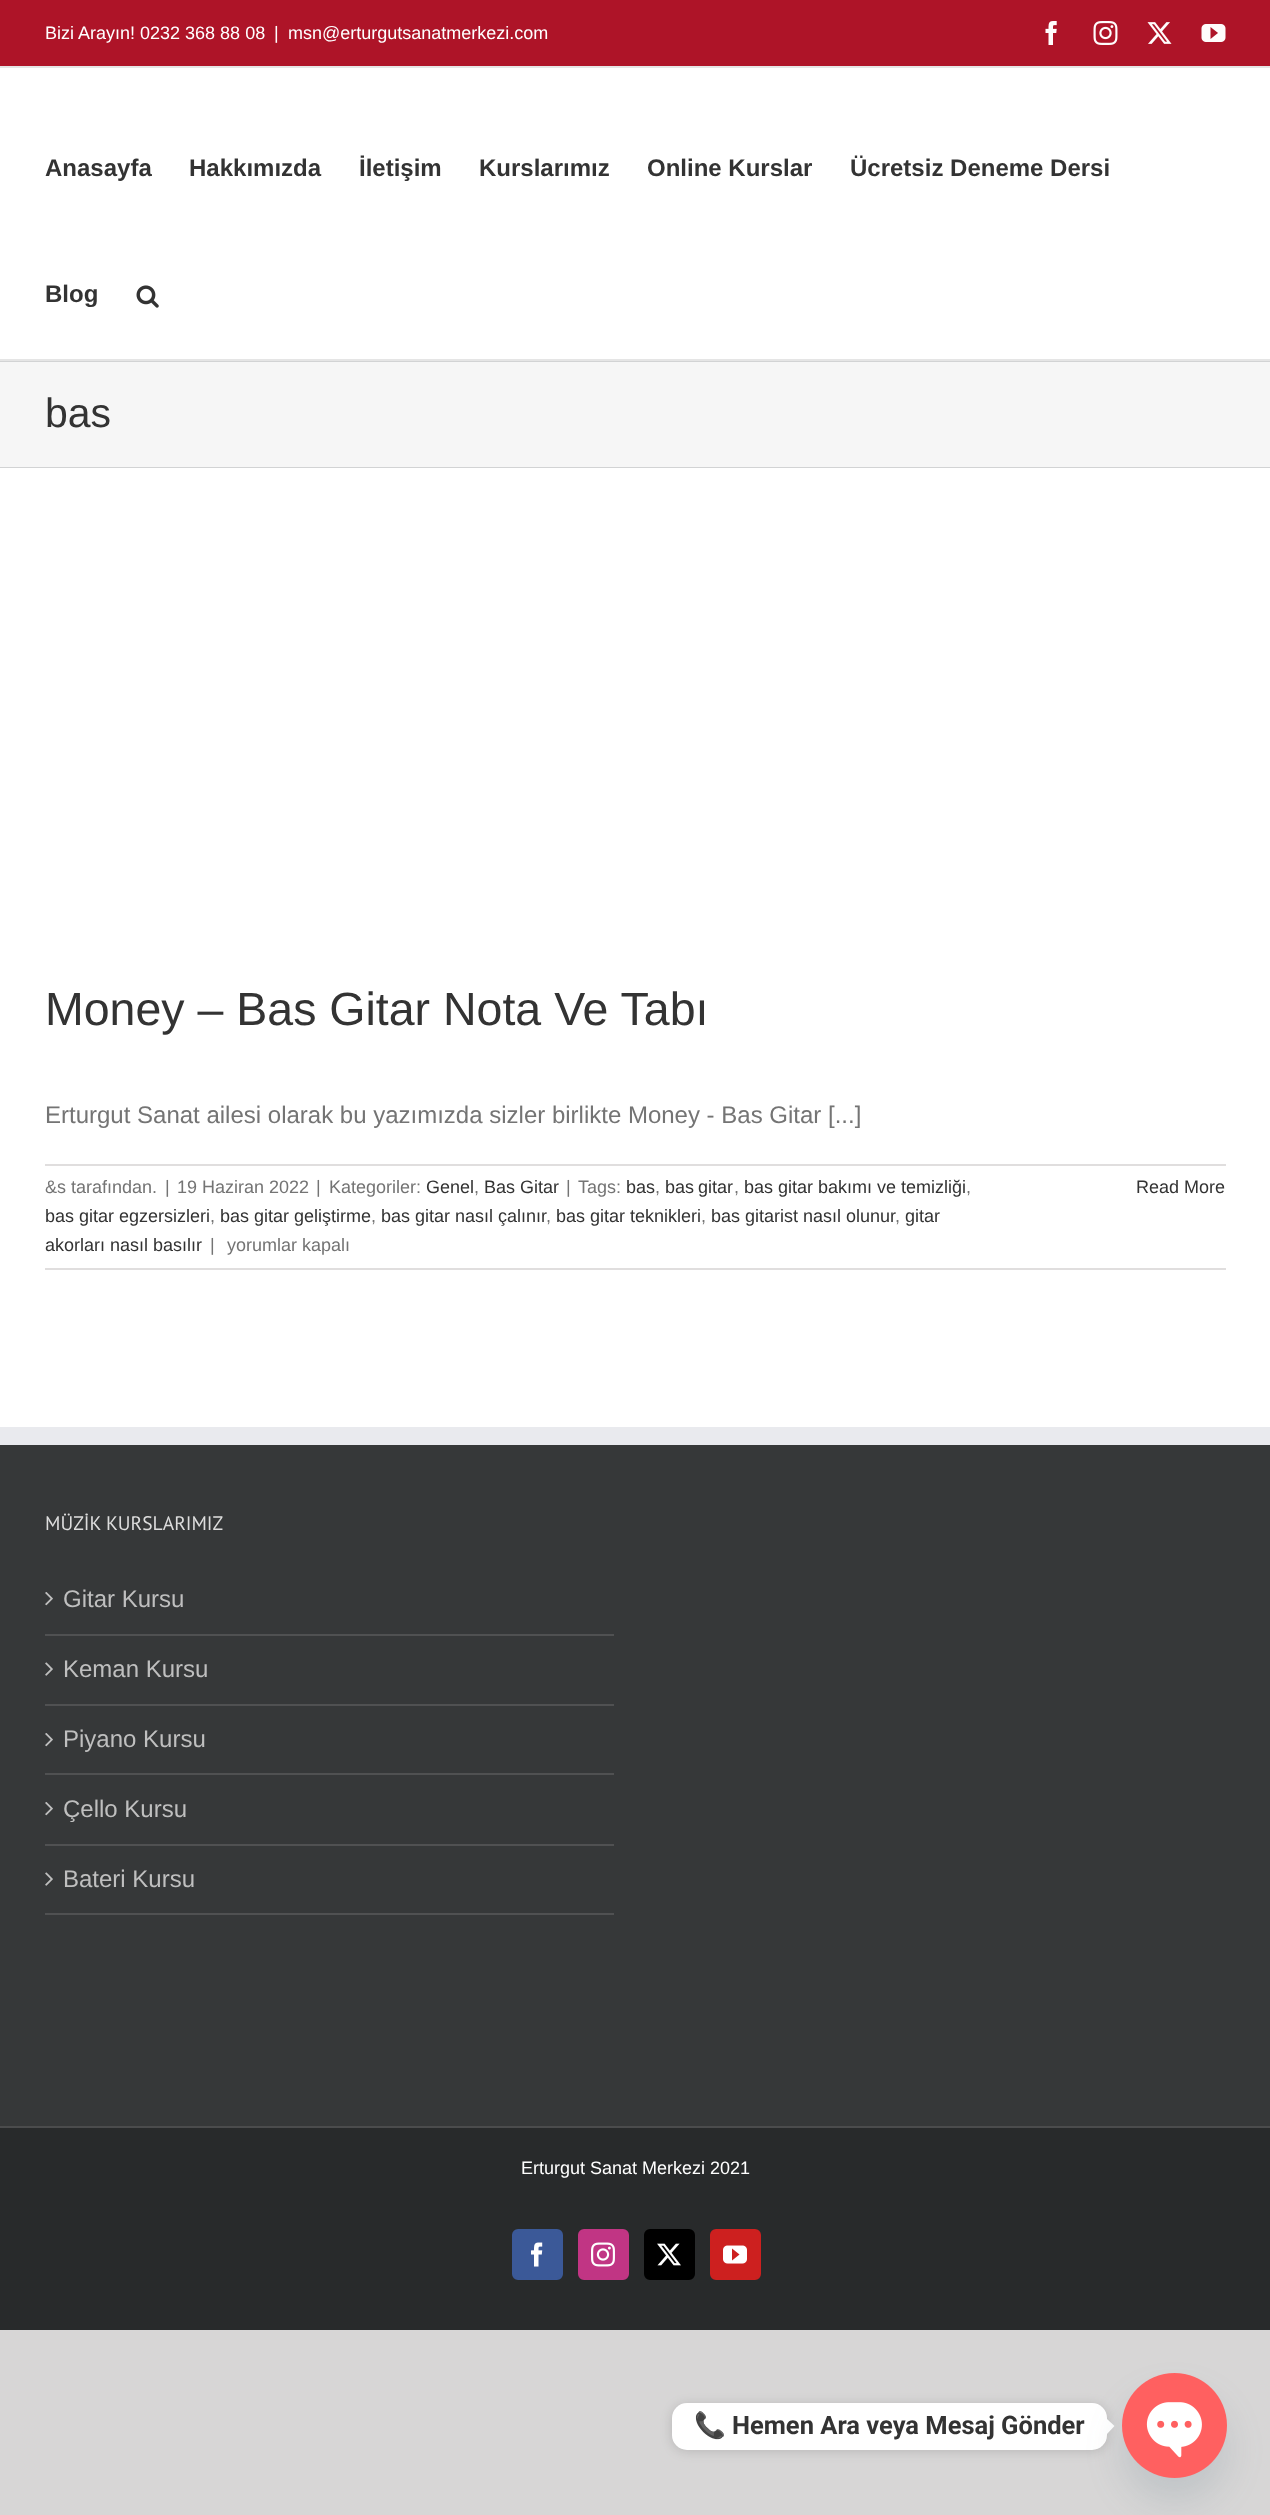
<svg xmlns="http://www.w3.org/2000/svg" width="1270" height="2515">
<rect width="100%" height="100%" fill="#d7d6d6"/>
<rect y="68" width="1270" height="291" fill="#fff"/>
<rect width="1270" height="66" fill="#ae1428"/>
<rect y="66" width="1270" height="2" fill="#e5e5e5"/>
<text x="45" y="39" style="font-family:Liberation Sans;font-size:18px;fill:#fff">Bizi Arayın! 0232 368 88 08</text>
<text x="274" y="39" style="font-family:Liberation Sans;font-size:18px;fill:#fff">|</text>
<text x="288" y="39" style="font-family:Liberation Sans;font-size:18px;fill:#fff">msn@erturgutsanatmerkezi.com</text>
<image x="1045" y="21" width="12" height="24" href="media/1.png"/>
<image x="1093" y="21" width="25" height="24" href="media/2.png"/>
<image x="1147" y="22" width="25" height="22" href="media/3.png"/>
<image x="1201" y="24" width="25" height="18" href="media/4.png"/>
<rect y="359" width="1270" height="2" fill="#e5e5e5"/>
<text x="45" y="176" style="font-family:Liberation Sans;font-size:24px;font-weight:bold;fill:#333">Anasayfa</text>
<text x="189" y="176" style="font-family:Liberation Sans;font-size:24px;font-weight:bold;fill:#333">Hakkımızda</text>
<text x="359" y="176" style="font-family:Liberation Sans;font-size:24px;font-weight:bold;fill:#333">İletişim</text>
<text x="479" y="176" style="font-family:Liberation Sans;font-size:24px;font-weight:bold;fill:#333">Kurslarımız</text>
<text x="647" y="176" style="font-family:Liberation Sans;font-size:24px;font-weight:bold;fill:#333">Online Kurslar</text>
<text x="850" y="176" style="font-family:Liberation Sans;font-size:24px;font-weight:bold;fill:#333">Ücretsiz Deneme Dersi</text>
<text x="45" y="302" style="font-family:Liberation Sans;font-size:24px;font-weight:bold;fill:#333">Blog</text>
<image x="136" y="285" width="23" height="23" href="media/5.png"/>
<rect y="362" width="1270" height="105" fill="#f6f6f6"/>
<rect y="361" width="1270" height="1" fill="#d2d3d4"/>
<rect y="467" width="1270" height="1" fill="#d2d3d4"/>
<text x="45" y="427" style="font-family:Liberation Sans;font-size:41px;fill:#333">bas</text>
<rect y="468" width="1270" height="959" fill="#fff"/>
<text x="45" y="1025" style="font-family:Liberation Sans;font-size:46.5px;fill:#333">Money – Bas Gitar Nota Ve Tabı</text>
<text x="45" y="1123" style="font-family:Liberation Sans;font-size:24px;fill:#747474">Erturgut Sanat ailesi olarak bu yazımızda sizler birlikte Money - Bas Gitar [...]</text>
<rect x="45" y="1164" width="1181" height="2" fill="#e0dede"/>
<rect x="45" y="1268" width="1181" height="2" fill="#e0dede"/>
<text x="45" y="1193" style="font-family:Liberation Sans;font-size:18px;fill:#747474">&amp;s tarafından.</text>
<text x="165" y="1193" style="font-family:Liberation Sans;font-size:18px;fill:#747474">|</text>
<text x="177" y="1193" style="font-family:Liberation Sans;font-size:18px;fill:#747474">19 Haziran 2022</text>
<text x="316" y="1193" style="font-family:Liberation Sans;font-size:18px;fill:#747474">|</text>
<text x="329" y="1193" style="font-family:Liberation Sans;font-size:18px;fill:#747474">Kategoriler:</text>
<text x="426" y="1193" style="font-family:Liberation Sans;font-size:18px;fill:#333">Genel</text>
<text x="474" y="1193" style="font-family:Liberation Sans;font-size:18px;fill:#747474">,</text>
<text x="484" y="1193" style="font-family:Liberation Sans;font-size:18px;fill:#333">Bas Gitar</text>
<text x="566" y="1193" style="font-family:Liberation Sans;font-size:18px;fill:#747474">|</text>
<text x="578" y="1193" style="font-family:Liberation Sans;font-size:18px;fill:#747474">Tags:</text>
<text x="626" y="1193" style="font-family:Liberation Sans;font-size:18px;fill:#333">bas</text>
<text x="655" y="1193" style="font-family:Liberation Sans;font-size:18px;fill:#747474">,</text>
<text x="665" y="1193" word-spacing="-1" style="font-family:Liberation Sans;font-size:18px;fill:#333">bas gitar</text>
<text x="734" y="1193" style="font-family:Liberation Sans;font-size:18px;fill:#747474">,</text>
<text x="744" y="1193" style="font-family:Liberation Sans;font-size:18px;fill:#333">bas gitar bakımı ve temizliği</text>
<text x="966" y="1193" style="font-family:Liberation Sans;font-size:18px;fill:#747474">,</text>
<text x="45" y="1222" style="font-family:Liberation Sans;font-size:18px;fill:#333">bas gitar egzersizleri</text>
<text x="210" y="1222" style="font-family:Liberation Sans;font-size:18px;fill:#747474">,</text>
<text x="220" y="1222" style="font-family:Liberation Sans;font-size:18px;fill:#333">bas gitar geliştirme</text>
<text x="371" y="1222" style="font-family:Liberation Sans;font-size:18px;fill:#747474">,</text>
<text x="381" y="1222" style="font-family:Liberation Sans;font-size:18px;fill:#333">bas gitar nasıl çalınır</text>
<text x="546" y="1222" style="font-family:Liberation Sans;font-size:18px;fill:#747474">,</text>
<text x="556" y="1222" style="font-family:Liberation Sans;font-size:18px;fill:#333">bas gitar teknikleri</text>
<text x="701" y="1222" style="font-family:Liberation Sans;font-size:18px;fill:#747474">,</text>
<text x="711" y="1222" style="font-family:Liberation Sans;font-size:18px;fill:#333">bas gitarist nasıl olunur</text>
<text x="895" y="1222" style="font-family:Liberation Sans;font-size:18px;fill:#747474">,</text>
<text x="905" y="1222" style="font-family:Liberation Sans;font-size:18px;fill:#333">gitar</text>
<text x="45" y="1251" style="font-family:Liberation Sans;font-size:18px;fill:#333">akorları nasıl basılır</text>
<text x="210" y="1251" style="font-family:Liberation Sans;font-size:18px;fill:#747474">|</text>
<text x="227" y="1251" style="font-family:Liberation Sans;font-size:18px;fill:#747474">yorumlar kapalı</text>
<text x="1136" y="1193" style="font-family:Liberation Sans;font-size:18px;fill:#333">Read More</text>
<rect y="1445" width="1270" height="681" fill="#363839"/>
<rect y="1427" width="1270" height="18" fill="#e9eaee"/>
<text x="45" y="1530" style="font-family:PT Sans;font-size:19.5px;fill:#ddd">MÜZİK KURSLARIMIZ</text>
<rect x="45" y="1634" width="569" height="2" fill="#505152"/>
<image x="45" y="1592" width="8" height="14" href="media/6.png"/>
<text x="63" y="1607" style="font-family:Liberation Sans;font-size:24px;fill:#bfbfbf">Gitar Kursu</text>
<rect x="45" y="1704" width="569" height="2" fill="#505152"/>
<image x="45" y="1662" width="8" height="14" href="media/7.png"/>
<text x="63" y="1677" style="font-family:Liberation Sans;font-size:24px;fill:#bfbfbf">Keman Kursu</text>
<rect x="45" y="1773" width="569" height="2" fill="#505152"/>
<image x="45" y="1733" width="8" height="14" href="media/6.png"/>
<text x="63" y="1747" style="font-family:Liberation Sans;font-size:24px;fill:#bfbfbf">Piyano Kursu</text>
<rect x="45" y="1844" width="569" height="2" fill="#505152"/>
<image x="45" y="1802" width="8" height="14" href="media/6.png"/>
<text x="63" y="1817" style="font-family:Liberation Sans;font-size:24px;fill:#bfbfbf">Çello Kursu</text>
<rect x="45" y="1913" width="569" height="2" fill="#505152"/>
<image x="45" y="1872" width="8" height="14" href="media/7.png"/>
<text x="63" y="1887" style="font-family:Liberation Sans;font-size:24px;fill:#bfbfbf">Bateri Kursu</text>
<rect y="2128" width="1270" height="202" fill="#282a2b"/>
<rect y="2126" width="1270" height="2" fill="#4b4c4d"/>
<text x="521" y="2174" style="font-family:Liberation Sans;font-size:18px;fill:#fff">Erturgut Sanat Merkezi 2021</text>
<rect x="513" y="2230" width="49" height="49" rx="5" fill="#3b5998" stroke="#3b5998" stroke-width="2"/>
<image x="531" y="2242" width="12" height="25" href="media/8.png"/>
<rect x="579" y="2230" width="49" height="49" rx="5" fill="#c13584" stroke="#c13584" stroke-width="2"/>
<image x="591" y="2242" width="24" height="25" href="media/9.png"/>
<rect x="645" y="2230" width="49" height="49" rx="5" fill="#000" stroke="#000" stroke-width="2"/>
<image x="657" y="2243" width="24" height="23" href="media/10.png"/>
<rect x="711" y="2230" width="49" height="49" rx="5" fill="#cd201f" stroke="#cd201f" stroke-width="2"/>
<image x="723" y="2245" width="24" height="19" href="media/11.png"/>
<rect x="672" y="2405" width="435" height="46" rx="15" fill="#00000026" filter="blur(6px)"/>
<rect x="672" y="2403" width="435" height="47" rx="15" fill="#fff"/>
<text x="694" y="2434" style="font-family:Noto Color Emoji;font-size:25.5px;font-weight:bold;fill:#333">📞</text>
<text x="732" y="2434" style="font-family:Roboto;font-size:25.5px;font-weight:bold;fill:#333">Hemen Ara veya Mesaj Gönder</text>
<path d="M1107 2434v-15l7.5 7z" fill="#fff"/>
<rect x="1122" y="2397" width="105" height="105" rx="52.5" fill="#49687e29" filter="blur(18px)"/>
<image x="1122" y="2373" width="105" height="105" href="media/12.png"/>
</svg>
